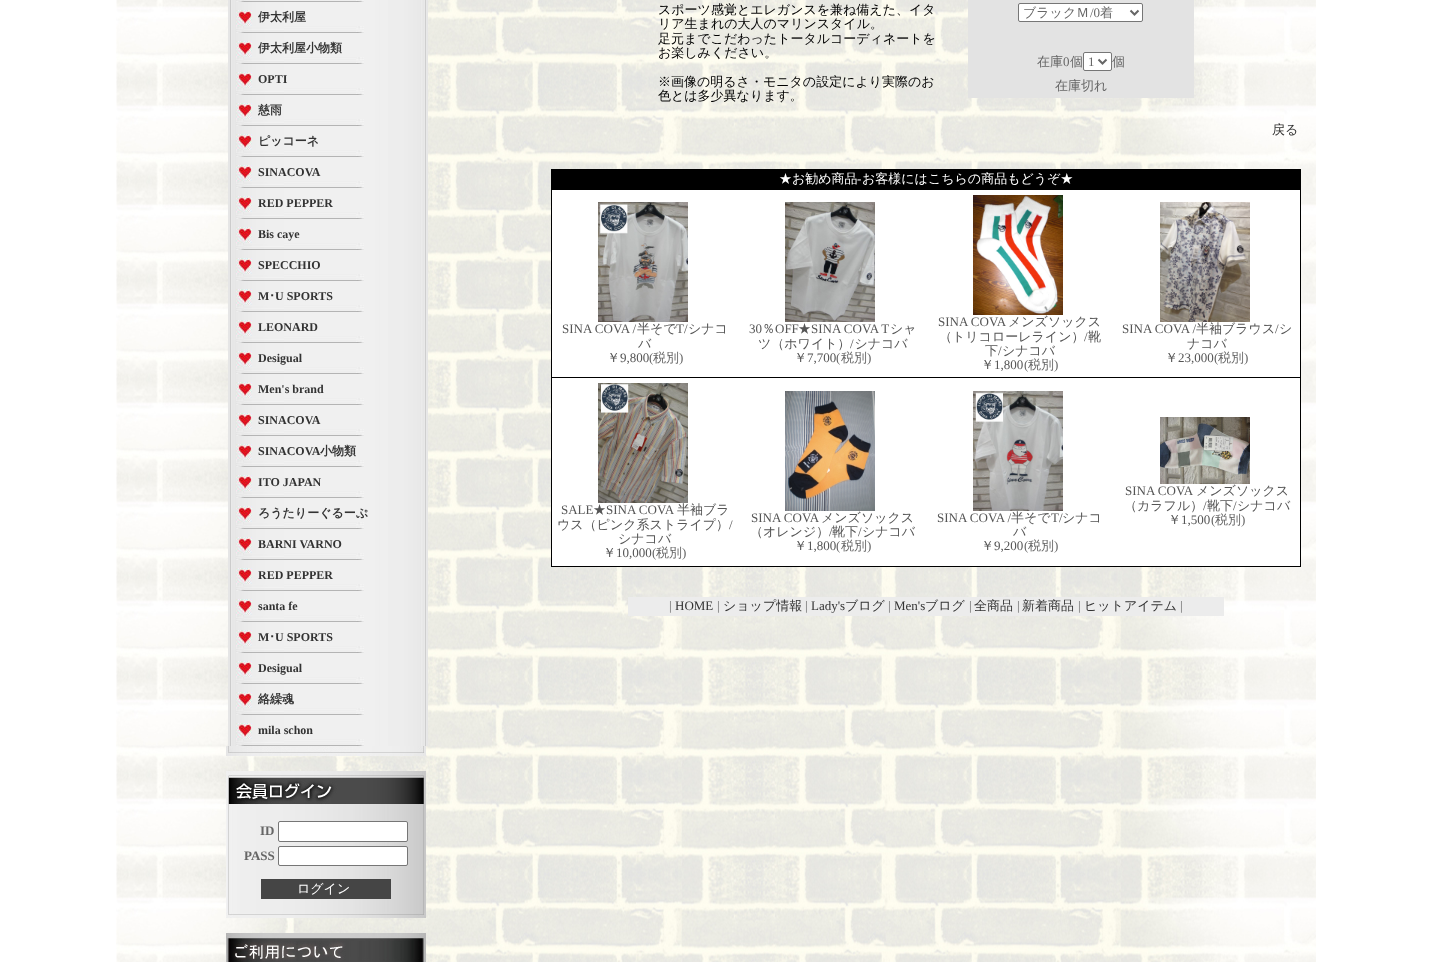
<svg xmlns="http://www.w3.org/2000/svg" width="1432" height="962">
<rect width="100%" height="100%" fill="#fff"/>
<image x="116" y="0" width="1200" height="962" href="media/1.png"/>
<image x="228" y="0" width="200" height="2" href="media/2.png"/>
<image x="228" y="2" width="200" height="31" href="media/3.png"/>
<text x="258" y="21" style="font-family:WenQuanYi Zen Hei;font-size:12px;font-weight:bold;fill:#333">伊太利屋</text>
<image x="228" y="33" width="200" height="31" href="media/3.png"/>
<text x="258" y="52" style="font-family:WenQuanYi Zen Hei;font-size:12px;font-weight:bold;fill:#333">伊太利屋小物類</text>
<image x="228" y="64" width="200" height="31" href="media/3.png"/>
<text x="258" y="83" style="font-family:Liberation Serif;font-size:12px;font-weight:bold;fill:#333">OPTI</text>
<image x="228" y="95" width="200" height="31" href="media/3.png"/>
<text x="258" y="114" style="font-family:WenQuanYi Zen Hei;font-size:12px;font-weight:bold;fill:#333">慈雨</text>
<image x="228" y="126" width="200" height="31" href="media/3.png"/>
<text x="258" y="145" style="font-family:WenQuanYi Zen Hei;font-size:12px;font-weight:bold;fill:#333">ピッコーネ</text>
<image x="228" y="157" width="200" height="31" href="media/3.png"/>
<text x="258" y="176" style="font-family:Liberation Serif;font-size:12px;font-weight:bold;fill:#333">SINACOVA</text>
<image x="228" y="188" width="200" height="31" href="media/3.png"/>
<text x="258" y="207" style="font-family:Liberation Serif;font-size:12px;font-weight:bold;fill:#333">RED PEPPER</text>
<image x="228" y="219" width="200" height="31" href="media/3.png"/>
<text x="258" y="238" style="font-family:Liberation Serif;font-size:12px;font-weight:bold;fill:#333">Bis caye</text>
<image x="228" y="250" width="200" height="31" href="media/3.png"/>
<text x="258" y="269" style="font-family:Liberation Serif;font-size:12px;font-weight:bold;fill:#333">SPECCHIO</text>
<image x="228" y="281" width="200" height="31" href="media/3.png"/>
<text x="258" y="300" style="font-family:Liberation Serif;font-size:12px;font-weight:bold;fill:#333">M</text>
<text x="269" y="300" style="font-family:IPAPGothic;font-size:12px;font-weight:bold;fill:#333">･</text>
<text x="275" y="300" style="font-family:Liberation Serif;font-size:12px;font-weight:bold;fill:#333">U SPORTS</text>
<image x="228" y="312" width="200" height="31" href="media/3.png"/>
<text x="258" y="331" style="font-family:Liberation Serif;font-size:12px;font-weight:bold;fill:#333">LEONARD</text>
<image x="228" y="343" width="200" height="31" href="media/3.png"/>
<text x="258" y="362" style="font-family:Liberation Serif;font-size:12px;font-weight:bold;fill:#333">Desigual</text>
<image x="228" y="374" width="200" height="31" href="media/3.png"/>
<text x="258" y="393" style="font-family:Liberation Serif;font-size:12px;font-weight:bold;fill:#333">Men's brand</text>
<image x="228" y="405" width="200" height="31" href="media/3.png"/>
<text x="258" y="424" style="font-family:Liberation Serif;font-size:12px;font-weight:bold;fill:#333">SINACOVA</text>
<image x="228" y="436" width="200" height="31" href="media/3.png"/>
<text x="258" y="455" style="font-family:Liberation Serif;font-size:12px;font-weight:bold;fill:#333">SINACOVA</text>
<text x="320" y="455" style="font-family:WenQuanYi Zen Hei;font-size:12px;font-weight:bold;fill:#333">小物類</text>
<image x="228" y="467" width="200" height="31" href="media/3.png"/>
<text x="258" y="486" style="font-family:Liberation Serif;font-size:12px;font-weight:bold;fill:#333">ITO JAPAN</text>
<image x="228" y="498" width="200" height="31" href="media/3.png"/>
<text x="258" y="517" style="font-family:WenQuanYi Zen Hei;font-size:12px;font-weight:bold;fill:#333">ろうたりーぐるーぷ</text>
<image x="228" y="529" width="200" height="31" href="media/3.png"/>
<text x="258" y="548" style="font-family:Liberation Serif;font-size:12px;font-weight:bold;fill:#333">BARNI VARNO</text>
<image x="228" y="560" width="200" height="31" href="media/3.png"/>
<text x="258" y="579" style="font-family:Liberation Serif;font-size:12px;font-weight:bold;fill:#333">RED PEPPER</text>
<image x="228" y="591" width="200" height="31" href="media/3.png"/>
<text x="258" y="610" style="font-family:Liberation Serif;font-size:12px;font-weight:bold;fill:#333">santa fe</text>
<image x="228" y="622" width="200" height="31" href="media/3.png"/>
<text x="258" y="641" style="font-family:Liberation Serif;font-size:12px;font-weight:bold;fill:#333">M</text>
<text x="269" y="641" style="font-family:IPAPGothic;font-size:12px;font-weight:bold;fill:#333">･</text>
<text x="275" y="641" style="font-family:Liberation Serif;font-size:12px;font-weight:bold;fill:#333">U SPORTS</text>
<image x="228" y="653" width="200" height="31" href="media/3.png"/>
<text x="258" y="672" style="font-family:Liberation Serif;font-size:12px;font-weight:bold;fill:#333">Desigual</text>
<image x="228" y="684" width="200" height="31" href="media/3.png"/>
<text x="258" y="703" style="font-family:WenQuanYi Zen Hei;font-size:12px;font-weight:bold;fill:#333">絡繰魂</text>
<image x="228" y="715" width="200" height="31" href="media/3.png"/>
<text x="258" y="734" style="font-family:Liberation Serif;font-size:12px;font-weight:bold;fill:#333">mila schon</text>
<image x="226" y="746" width="200" height="10" href="media/4.png"/>
<image x="226" y="771" width="200" height="34" href="media/5.png"/>
<image x="226" y="805" width="200" height="107" href="media/6.png"/>
<text x="260" y="835" style="font-family:Liberation Serif;font-size:13px;font-weight:bold;fill:#666">ID</text>
<rect x="278.5" y="821.5" width="129" height="20" rx="1.5" fill="#fff" stroke="#767676"/>
<text x="244" y="860" style="font-family:Liberation Serif;font-size:13px;font-weight:bold;fill:#666">PASS</text>
<rect x="278.5" y="846.5" width="129" height="19" rx="1.5" fill="#fff" stroke="#767676"/>
<rect x="261" y="879" width="130" height="20" fill="#454545"/>
<text x="297" y="893" style="font-family:WenQuanYi Zen Hei;font-size:13px;font-weight:500;fill:#fff">ログイン</text>
<image x="226" y="912" width="200" height="6" href="media/7.png"/>
<image x="226" y="933" width="200" height="29" href="media/8.png"/>
<text x="658" y="14" style="font-family:WenQuanYi Zen Hei;font-size:13px;font-weight:500;fill:#000">スポーツ感覚とエレガンスを兼ね備えた、イタ</text>
<text x="658" y="28" style="font-family:WenQuanYi Zen Hei;font-size:13px;font-weight:500;fill:#000">リア生まれの大人のマリンスタイル。</text>
<text x="658" y="43" style="font-family:WenQuanYi Zen Hei;font-size:13px;font-weight:500;fill:#000">足元までこだわったトータルコーディネートを</text>
<text x="658" y="57" style="font-family:WenQuanYi Zen Hei;font-size:13px;font-weight:500;fill:#000">お楽しみください。</text>
<text x="658" y="86" style="font-family:WenQuanYi Zen Hei;font-size:13px;font-weight:500;fill:#000">※画像の明るさ・モニタの設定により実際のお</text>
<text x="658" y="100" style="font-family:WenQuanYi Zen Hei;font-size:13px;font-weight:500;fill:#000">色とは多少異なります。</text>
<rect x="968" width="226" height="98" fill="#e3e3e3"/>
<rect x="1018.5" y="3.5" width="124" height="18" rx="1.5" fill="#fff" stroke="#767676"/>
<path d="M1130.5 10.5l4 4l4-4" fill="none" stroke="#666" stroke-width="2"/>
<text x="1023" y="17" style="font-family:WenQuanYi Zen Hei;font-size:13px;font-weight:500;fill:#666">ブラックＭ</text>
<text x="1090" y="17" style="font-family:Liberation Serif;font-size:13px;fill:#666">/0</text>
<text x="1100" y="17" style="font-family:WenQuanYi Zen Hei;font-size:13px;font-weight:500;fill:#666">着</text>
<text x="1037" y="66" style="font-family:WenQuanYi Zen Hei;font-size:13px;font-weight:500;fill:#666">在庫</text>
<text x="1063" y="66" style="font-family:Liberation Serif;font-size:13px;fill:#666">0</text>
<text x="1070" y="66" style="font-family:WenQuanYi Zen Hei;font-size:13px;font-weight:500;fill:#666">個</text>
<rect x="1083.5" y="52.5" width="28" height="18" rx="1.5" fill="#fff" stroke="#767676"/>
<path d="M1098.5 59.5l4 4l4-4" fill="none" stroke="#666" stroke-width="2"/>
<text x="1088" y="66" style="font-family:Liberation Serif;font-size:13px;fill:#666">1</text>
<text x="1112" y="66" style="font-family:WenQuanYi Zen Hei;font-size:13px;font-weight:500;fill:#666">個</text>
<text x="1055" y="90" style="font-family:WenQuanYi Zen Hei;font-size:13px;font-weight:500;fill:#666">在庫切れ</text>
<text x="1272" y="134" style="font-family:WenQuanYi Zen Hei;font-size:13px;font-weight:500;fill:#333">戻る</text>
<rect x="551" y="169" width="750" height="398" fill="#000"/>
<text x="779" y="183" style="font-family:WenQuanYi Zen Hei;font-size:13px;font-weight:500;fill:#fff">★お勧め商品</text>
<text x="857" y="183" style="font-family:Liberation Serif;font-size:13px;fill:#fff">-</text>
<text x="862" y="183" style="font-family:WenQuanYi Zen Hei;font-size:13px;font-weight:500;fill:#fff">お客様にはこちらの商品もどうぞ★</text>
<rect x="552" y="190" width="748" height="187" fill="#fff"/>
<image x="598" y="202" width="90" height="120" href="media/9.png"/>
<text x="562" y="333" style="font-family:Liberation Serif;font-size:13px;fill:#555">SINA COVA /</text>
<text x="637" y="333" style="font-family:WenQuanYi Zen Hei;font-size:13px;font-weight:500;fill:#555">半そで</text>
<text x="676" y="333" style="font-family:Liberation Serif;font-size:13px;fill:#555">T/</text>
<text x="688" y="333" style="font-family:WenQuanYi Zen Hei;font-size:13px;font-weight:500;fill:#555">シナコ</text>
<text x="638" y="348" style="font-family:WenQuanYi Zen Hei;font-size:13px;font-weight:500;fill:#555">バ</text>
<text x="607" y="362" style="font-family:WenQuanYi Zen Hei;font-size:13px;font-weight:500;fill:#555">￥</text>
<text x="620" y="362" style="font-family:Liberation Serif;font-size:13px;fill:#555">9,800</text>
<text x="649" y="362" style="font-family:Liberation Serif;font-size:13px;fill:#666">(</text>
<text x="653" y="362" style="font-family:WenQuanYi Zen Hei;font-size:13px;font-weight:500;fill:#666">税別</text>
<text x="679" y="362" style="font-family:Liberation Serif;font-size:13px;fill:#666">)</text>
<image x="785" y="202" width="90" height="120" href="media/10.png"/>
<text x="749" y="333" style="font-family:Liberation Serif;font-size:13px;fill:#555">30</text>
<text x="762" y="333" style="font-family:WenQuanYi Zen Hei;font-size:13px;font-weight:500;fill:#555">％</text>
<text x="775" y="333" style="font-family:Liberation Serif;font-size:13px;fill:#555">OFF</text>
<text x="798" y="333" style="font-family:WenQuanYi Zen Hei;font-size:13px;font-weight:500;fill:#555">★</text>
<text x="811" y="333" style="font-family:Liberation Serif;font-size:13px;fill:#555">SINA COVA T</text>
<text x="890" y="333" style="font-family:WenQuanYi Zen Hei;font-size:13px;font-weight:500;fill:#555">シャ</text>
<text x="758" y="348" style="font-family:WenQuanYi Zen Hei;font-size:13px;font-weight:500;fill:#555">ツ（ホワイト） シナコバ</text>
<text x="850" y="348" style="font-family:Liberation Serif;font-size:13px;fill:#555">/</text>
<text x="794" y="362" style="font-family:WenQuanYi Zen Hei;font-size:13px;font-weight:500;fill:#555">￥</text>
<text x="807" y="362" style="font-family:Liberation Serif;font-size:13px;fill:#555">7,700</text>
<text x="836" y="362" style="font-family:Liberation Serif;font-size:13px;fill:#666">(</text>
<text x="841" y="362" style="font-family:WenQuanYi Zen Hei;font-size:13px;font-weight:500;fill:#666">税別</text>
<text x="867" y="362" style="font-family:Liberation Serif;font-size:13px;fill:#666">)</text>
<image x="973" y="195" width="90" height="120" href="media/11.png"/>
<text x="938" y="326" style="font-family:Liberation Serif;font-size:13px;fill:#555">SINA COVA</text>
<text x="1008" y="326" style="font-family:WenQuanYi Zen Hei;font-size:13px;font-weight:500;fill:#555">メンズソックス</text>
<text x="939" y="341" style="font-family:WenQuanYi Zen Hei;font-size:13px;font-weight:500;fill:#555">（トリコローレライン）</text>
<text x="1084" y="341" style="font-family:Liberation Serif;font-size:13px;fill:#555">/</text>
<text x="1088" y="341" style="font-family:WenQuanYi Zen Hei;font-size:13px;font-weight:500;fill:#555">靴</text>
<text x="985" y="355" style="font-family:WenQuanYi Zen Hei;font-size:13px;font-weight:500;fill:#555">下 シナコバ</text>
<text x="998" y="355" style="font-family:Liberation Serif;font-size:13px;fill:#555">/</text>
<text x="981" y="369" style="font-family:WenQuanYi Zen Hei;font-size:13px;font-weight:500;fill:#555">￥</text>
<text x="994" y="369" style="font-family:Liberation Serif;font-size:13px;fill:#555">1,800</text>
<text x="1024" y="369" style="font-family:Liberation Serif;font-size:13px;fill:#666">(</text>
<text x="1028" y="369" style="font-family:WenQuanYi Zen Hei;font-size:13px;font-weight:500;fill:#666">税別</text>
<text x="1054" y="369" style="font-family:Liberation Serif;font-size:13px;fill:#666">)</text>
<image x="1160" y="202" width="90" height="120" href="media/12.png"/>
<text x="1122" y="333" style="font-family:Liberation Serif;font-size:13px;fill:#555">SINA COVA /</text>
<text x="1196" y="333" style="font-family:WenQuanYi Zen Hei;font-size:13px;font-weight:500;fill:#555">半袖ブラウス シ</text>
<text x="1275" y="333" style="font-family:Liberation Serif;font-size:13px;fill:#555">/</text>
<text x="1187" y="348" style="font-family:WenQuanYi Zen Hei;font-size:13px;font-weight:500;fill:#555">ナコバ</text>
<text x="1165" y="362" style="font-family:WenQuanYi Zen Hei;font-size:13px;font-weight:500;fill:#555">￥</text>
<text x="1178" y="362" style="font-family:Liberation Serif;font-size:13px;fill:#555">23,000</text>
<text x="1214" y="362" style="font-family:Liberation Serif;font-size:13px;fill:#666">(</text>
<text x="1218" y="362" style="font-family:WenQuanYi Zen Hei;font-size:13px;font-weight:500;fill:#666">税別</text>
<text x="1244" y="362" style="font-family:Liberation Serif;font-size:13px;fill:#666">)</text>
<rect x="552" y="378" width="748" height="188" fill="#fff"/>
<image x="598" y="383" width="90" height="120" href="media/13.png"/>
<text x="561" y="514" style="font-family:Liberation Serif;font-size:13px;fill:#555">SALE</text>
<text x="593" y="514" style="font-family:WenQuanYi Zen Hei;font-size:13px;font-weight:500;fill:#555">★</text>
<text x="606" y="514" style="font-family:Liberation Serif;font-size:13px;fill:#555">SINA COVA</text>
<text x="677" y="514" style="font-family:WenQuanYi Zen Hei;font-size:13px;font-weight:500;fill:#555">半袖ブラ</text>
<text x="557" y="529" style="font-family:WenQuanYi Zen Hei;font-size:13px;font-weight:500;fill:#555">ウス（ピンク系ストライプ）</text>
<text x="729" y="529" style="font-family:Liberation Serif;font-size:13px;fill:#555">/</text>
<text x="618" y="543" style="font-family:WenQuanYi Zen Hei;font-size:13px;font-weight:500;fill:#555">シナコバ</text>
<text x="603" y="557" style="font-family:WenQuanYi Zen Hei;font-size:13px;font-weight:500;fill:#555">￥</text>
<text x="616" y="557" style="font-family:Liberation Serif;font-size:13px;fill:#555">10,000</text>
<text x="652" y="557" style="font-family:Liberation Serif;font-size:13px;fill:#666">(</text>
<text x="656" y="557" style="font-family:WenQuanYi Zen Hei;font-size:13px;font-weight:500;fill:#666">税別</text>
<text x="682" y="557" style="font-family:Liberation Serif;font-size:13px;fill:#666">)</text>
<image x="785" y="391" width="90" height="120" href="media/14.png"/>
<text x="751" y="522" style="font-family:Liberation Serif;font-size:13px;fill:#555">SINA COVA</text>
<text x="821" y="522" style="font-family:WenQuanYi Zen Hei;font-size:13px;font-weight:500;fill:#555">メンズソックス</text>
<text x="750" y="536" style="font-family:WenQuanYi Zen Hei;font-size:13px;font-weight:500;fill:#555">（オレンジ）</text>
<text x="829" y="536" style="font-family:Liberation Serif;font-size:13px;fill:#555">/</text>
<text x="832" y="536" style="font-family:WenQuanYi Zen Hei;font-size:13px;font-weight:500;fill:#555">靴下 シナコバ</text>
<text x="858" y="536" style="font-family:Liberation Serif;font-size:13px;fill:#555">/</text>
<text x="794" y="550" style="font-family:WenQuanYi Zen Hei;font-size:13px;font-weight:500;fill:#555">￥</text>
<text x="807" y="550" style="font-family:Liberation Serif;font-size:13px;fill:#555">1,800</text>
<text x="836" y="550" style="font-family:Liberation Serif;font-size:13px;fill:#666">(</text>
<text x="841" y="550" style="font-family:WenQuanYi Zen Hei;font-size:13px;font-weight:500;fill:#666">税別</text>
<text x="867" y="550" style="font-family:Liberation Serif;font-size:13px;fill:#666">)</text>
<image x="973" y="391" width="90" height="120" href="media/15.png"/>
<text x="937" y="522" style="font-family:Liberation Serif;font-size:13px;fill:#555">SINA COVA /</text>
<text x="1011" y="522" style="font-family:WenQuanYi Zen Hei;font-size:13px;font-weight:500;fill:#555">半そで</text>
<text x="1051" y="522" style="font-family:Liberation Serif;font-size:13px;fill:#555">T/</text>
<text x="1062" y="522" style="font-family:WenQuanYi Zen Hei;font-size:13px;font-weight:500;fill:#555">シナコ</text>
<text x="1013" y="536" style="font-family:WenQuanYi Zen Hei;font-size:13px;font-weight:500;fill:#555">バ</text>
<text x="981" y="550" style="font-family:WenQuanYi Zen Hei;font-size:13px;font-weight:500;fill:#555">￥</text>
<text x="994" y="550" style="font-family:Liberation Serif;font-size:13px;fill:#555">9,200</text>
<text x="1024" y="550" style="font-family:Liberation Serif;font-size:13px;fill:#666">(</text>
<text x="1028" y="550" style="font-family:WenQuanYi Zen Hei;font-size:13px;font-weight:500;fill:#666">税別</text>
<text x="1054" y="550" style="font-family:Liberation Serif;font-size:13px;fill:#666">)</text>
<image x="1160" y="417" width="90" height="67" href="media/16.png"/>
<text x="1125" y="495" style="font-family:Liberation Serif;font-size:13px;fill:#555">SINA COVA</text>
<text x="1196" y="495" style="font-family:WenQuanYi Zen Hei;font-size:13px;font-weight:500;fill:#555">メンズソックス</text>
<text x="1124" y="510" style="font-family:WenQuanYi Zen Hei;font-size:13px;font-weight:500;fill:#555">（カラフル） 靴下 シナコバ</text>
<text x="1203" y="510" style="font-family:Liberation Serif;font-size:13px;fill:#555">/</text>
<text x="1233" y="510" style="font-family:Liberation Serif;font-size:13px;fill:#555">/</text>
<text x="1168" y="524" style="font-family:WenQuanYi Zen Hei;font-size:13px;font-weight:500;fill:#555">￥</text>
<text x="1181" y="524" style="font-family:Liberation Serif;font-size:13px;fill:#555">1,500</text>
<text x="1211" y="524" style="font-family:Liberation Serif;font-size:13px;fill:#666">(</text>
<text x="1215" y="524" style="font-family:WenQuanYi Zen Hei;font-size:13px;font-weight:500;fill:#666">税別</text>
<text x="1241" y="524" style="font-family:Liberation Serif;font-size:13px;fill:#666">)</text>
<rect x="628" y="597" width="596" height="19" fill="#ececec"/>
<text x="669" y="610" style="font-family:Liberation Serif;font-size:13px;fill:#666">|</text>
<text x="675" y="610" style="font-family:Liberation Serif;font-size:13px;fill:#333">HOME</text>
<text x="717" y="610" style="font-family:Liberation Serif;font-size:13px;fill:#666">|</text>
<text x="723" y="610" style="font-family:WenQuanYi Zen Hei;font-size:13px;font-weight:500;fill:#333">ショップ情報</text>
<text x="805" y="610" style="font-family:Liberation Serif;font-size:13px;fill:#666">|</text>
<text x="811" y="610" style="font-family:Liberation Serif;font-size:13px;fill:#333">Lady's</text>
<text x="845" y="610" style="font-family:WenQuanYi Zen Hei;font-size:13px;font-weight:500;fill:#333">ブログ</text>
<text x="888" y="610" style="font-family:Liberation Serif;font-size:13px;fill:#666">|</text>
<text x="894" y="610" style="font-family:Liberation Serif;font-size:13px;fill:#333">Men's</text>
<text x="925" y="610" style="font-family:WenQuanYi Zen Hei;font-size:13px;font-weight:500;fill:#333">ブログ</text>
<text x="969" y="610" style="font-family:Liberation Serif;font-size:13px;fill:#666">|</text>
<text x="974" y="610" style="font-family:WenQuanYi Zen Hei;font-size:13px;font-weight:500;fill:#333">全商品</text>
<text x="1017" y="610" style="font-family:Liberation Serif;font-size:13px;fill:#666">|</text>
<text x="1022" y="610" style="font-family:WenQuanYi Zen Hei;font-size:13px;font-weight:500;fill:#333">新着商品</text>
<text x="1078" y="610" style="font-family:Liberation Serif;font-size:13px;fill:#666">|</text>
<text x="1084" y="610" style="font-family:WenQuanYi Zen Hei;font-size:13px;font-weight:500;fill:#333">ヒットアイテム</text>
<text x="1180" y="610" style="font-family:Liberation Serif;font-size:13px;fill:#666">|</text>
</svg>
